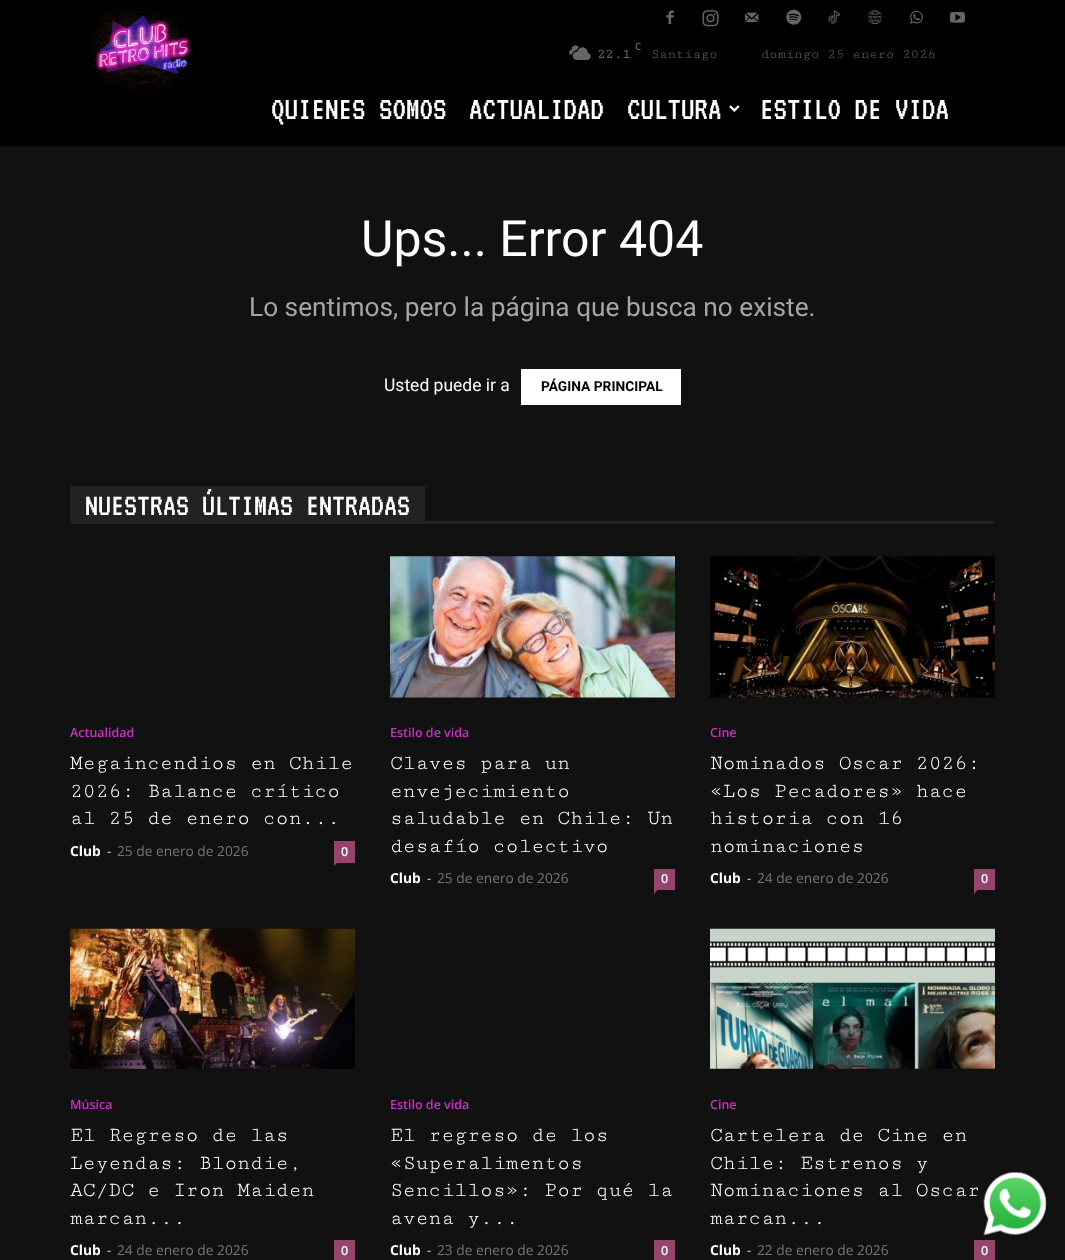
<svg xmlns="http://www.w3.org/2000/svg" width="1065" height="1260">
<rect width="100%" height="100%" fill="#111"/>
<rect width="1065" height="146" fill="#000"/>
<image x="85" y="5" width="107" height="90" href="media/1.png"/>
<image x="666" y="10" width="8" height="15" href="media/2.png"/>
<image x="702" y="10" width="17" height="17" href="media/3.png"/>
<image x="745" y="12" width="14" height="10" href="media/4.png"/>
<image x="786" y="9" width="16" height="16" href="media/5.png"/>
<image x="828" y="10" width="12" height="14" href="media/6.png"/>
<image x="868" y="10" width="14" height="14" href="media/7.png"/>
<image x="910" y="10" width="13" height="14" href="media/8.png"/>
<image x="950" y="12" width="15" height="11" href="media/9.png"/>
<image x="569" y="45" width="22" height="15" href="media/10.png"/>
<text x="635" y="50" style="font-family:Open Sans;font-size:10px;font-weight:600;fill:#666">C</text>
<text x="597" y="58" style="font-family:Cutive Mono;font-size:13.75px;font-weight:bold;fill:#666">22.1</text>
<text x="651" y="58" style="font-family:Cutive Mono;font-size:13.75px;fill:#666">Santiago</text>
<text x="761" y="58" style="font-family:Cutive Mono;font-size:13.75px;fill:#666">domingo 25 enero 2026</text>
<text x="271" y="119" style="font-family:'VT323';font-size:33.75px;fill:#fff">QUIENES SOMOS</text>
<text x="469" y="119" style="font-family:'VT323';font-size:33.75px;fill:#fff">ACTUALIDAD</text>
<text x="627" y="119" style="font-family:'VT323';font-size:33.75px;fill:#fff">CULTURA</text>
<image x="729" y="105" width="11" height="7" href="media/11.png"/>
<text x="760" y="119" style="font-family:'VT323';font-size:33.75px;fill:#fff">ESTILO DE VIDA</text>
<image x="0" y="146" width="1065" height="1" href="media/12.png"/>
<text x="361" y="256" style="font-family:Roboto;font-size:50px;fill:#fff">Ups... Error 404</text>
<text x="249" y="316" style="font-family:Roboto;font-size:26.25px;fill:#a6a6a6">Lo sentimos, pero la página que busca no existe.</text>
<text x="384" y="391" style="font-family:Roboto;font-size:17.5px;fill:#fff">Usted puede ir a</text>
<rect x="521" y="369" width="160" height="36" fill="#fff"/>
<text x="541" y="391" style="font-family:Roboto;font-size:13.75px;font-weight:bold;fill:#000">PÁGINA PRINCIPAL</text>
<rect x="70" y="521" width="925" height="3" fill="#222"/>
<rect x="70" y="486" width="355" height="35" fill="#222"/>
<text x="85" y="515" style="font-family:'VT323';font-size:32.5px;fill:#fff">NUESTRAS ÚLTIMAS ENTRADAS</text>
<text x="70" y="737" style="font-family:Open Sans;font-size:12.5px;font-weight:600;fill:#cc31c6">Actualidad</text>
<text x="70" y="769" style="font-family:Cutive Mono;font-size:21.25px;fill:#fff">Megaincendios en Chile</text>
<text x="70" y="797" style="font-family:Cutive Mono;font-size:21.25px;fill:#fff">2026: Balance crítico</text>
<text x="70" y="824" style="font-family:Cutive Mono;font-size:21.25px;fill:#fff">al 25 de enero con...</text>
<text x="70" y="856" style="font-family:Open Sans;font-size:13.75px;font-weight:bold;fill:#fff">Club</text>
<text x="107" y="856" style="font-family:Open Sans;font-size:13.75px;fill:#ccc">-</text>
<text x="117" y="856" style="font-family:Open Sans;font-size:13.75px;fill:#767676">25 de enero de 2026</text>
<rect x="334" y="841" width="21" height="22" fill="#96446c"/>
<text x="341" y="856" style="font-family:Open Sans;font-size:12.5px;font-weight:600;fill:#fff">0</text>
<path d="M334 862.5h3.5l-3.5 3.5z" fill="#96446c"/>
<image x="390" y="556" width="285" height="142" href="media/13.png"/>
<text x="390" y="737" style="font-family:Open Sans;font-size:12.5px;font-weight:600;fill:#cc31c6">Estilo de vida</text>
<text x="390" y="769" style="font-family:Cutive Mono;font-size:21.25px;fill:#fff">Claves para un</text>
<text x="390" y="797" style="font-family:Cutive Mono;font-size:21.25px;fill:#fff">envejecimiento</text>
<text x="390" y="824" style="font-family:Cutive Mono;font-size:21.25px;fill:#fff">saludable en Chile: Un</text>
<text x="390" y="852" style="font-family:Cutive Mono;font-size:21.25px;fill:#fff">desafío colectivo</text>
<text x="390" y="883" style="font-family:Open Sans;font-size:13.75px;font-weight:bold;fill:#fff">Club</text>
<text x="427" y="883" style="font-family:Open Sans;font-size:13.75px;fill:#ccc">-</text>
<text x="437" y="883" style="font-family:Open Sans;font-size:13.75px;fill:#767676">25 de enero de 2026</text>
<rect x="654" y="869" width="21" height="21" fill="#96446c"/>
<text x="661" y="883" style="font-family:Open Sans;font-size:12.5px;font-weight:600;fill:#fff">0</text>
<path d="M654 890h3.5l-3.5 4z" fill="#96446c"/>
<image x="710" y="556" width="285" height="142" href="media/14.png"/>
<text x="710" y="737" style="font-family:Open Sans;font-size:12.5px;font-weight:600;fill:#cc31c6">Cine</text>
<text x="710" y="769" style="font-family:Cutive Mono;font-size:21.25px;fill:#fff">Nominados Oscar 2026:</text>
<text x="710" y="797" style="font-family:Cutive Mono;font-size:21.25px;fill:#fff">«Los Pecadores» hace</text>
<text x="710" y="824" style="font-family:Cutive Mono;font-size:21.25px;fill:#fff">historia con 16</text>
<text x="710" y="852" style="font-family:Cutive Mono;font-size:21.25px;fill:#fff">nominaciones</text>
<text x="710" y="883" style="font-family:Open Sans;font-size:13.75px;font-weight:bold;fill:#fff">Club</text>
<text x="747" y="883" style="font-family:Open Sans;font-size:13.75px;fill:#ccc">-</text>
<text x="757" y="883" style="font-family:Open Sans;font-size:13.75px;fill:#767676">24 de enero de 2026</text>
<rect x="974" y="869" width="21" height="21" fill="#96446c"/>
<text x="981" y="883" style="font-family:Open Sans;font-size:12.5px;font-weight:600;fill:#fff">0</text>
<path d="M974 890h3.5l-3.5 4z" fill="#96446c"/>
<image x="70" y="928" width="285" height="141" href="media/15.png"/>
<text x="70" y="1109" style="font-family:Open Sans;font-size:12.5px;font-weight:600;fill:#cc31c6">Música</text>
<text x="70" y="1141" style="font-family:Cutive Mono;font-size:21.25px;fill:#fff">El Regreso de las</text>
<text x="70" y="1169" style="font-family:Cutive Mono;font-size:21.25px;fill:#fff">Leyendas: Blondie,</text>
<text x="70" y="1196" style="font-family:Cutive Mono;font-size:21.25px;fill:#fff">AC/DC e Iron Maiden</text>
<text x="70" y="1224" style="font-family:Cutive Mono;font-size:21.25px;fill:#fff">marcan...</text>
<text x="70" y="1255" style="font-family:Open Sans;font-size:13.75px;font-weight:bold;fill:#fff">Club</text>
<text x="107" y="1255" style="font-family:Open Sans;font-size:13.75px;fill:#ccc">-</text>
<text x="117" y="1255" style="font-family:Open Sans;font-size:13.75px;fill:#767676">24 de enero de 2026</text>
<rect x="334" y="1240" width="21" height="20" fill="#96446c"/>
<text x="341" y="1255" style="font-family:Open Sans;font-size:12.5px;font-weight:600;fill:#fff">0</text>
<text x="390" y="1109" style="font-family:Open Sans;font-size:12.5px;font-weight:600;fill:#cc31c6">Estilo de vida</text>
<text x="390" y="1141" style="font-family:Cutive Mono;font-size:21.25px;fill:#fff">El regreso de los</text>
<text x="390" y="1169" style="font-family:Cutive Mono;font-size:21.25px;fill:#fff">«Superalimentos</text>
<text x="390" y="1196" style="font-family:Cutive Mono;font-size:21.25px;fill:#fff">Sencillos»: Por qué la</text>
<text x="390" y="1224" style="font-family:Cutive Mono;font-size:21.25px;fill:#fff">avena y...</text>
<text x="390" y="1255" style="font-family:Open Sans;font-size:13.75px;font-weight:bold;fill:#fff">Club</text>
<text x="427" y="1255" style="font-family:Open Sans;font-size:13.75px;fill:#ccc">-</text>
<text x="437" y="1255" style="font-family:Open Sans;font-size:13.75px;fill:#767676">23 de enero de 2026</text>
<rect x="654" y="1240" width="21" height="20" fill="#96446c"/>
<text x="661" y="1255" style="font-family:Open Sans;font-size:12.5px;font-weight:600;fill:#fff">0</text>
<image x="710" y="928" width="285" height="141" href="media/16.png"/>
<text x="710" y="1109" style="font-family:Open Sans;font-size:12.5px;font-weight:600;fill:#cc31c6">Cine</text>
<text x="710" y="1141" style="font-family:Cutive Mono;font-size:21.25px;fill:#fff">Cartelera de Cine en</text>
<text x="710" y="1169" style="font-family:Cutive Mono;font-size:21.25px;fill:#fff">Chile: Estrenos y</text>
<text x="710" y="1196" style="font-family:Cutive Mono;font-size:21.25px;fill:#fff">Nominaciones al Oscar</text>
<text x="710" y="1224" style="font-family:Cutive Mono;font-size:21.25px;fill:#fff">marcan...</text>
<text x="710" y="1255" style="font-family:Open Sans;font-size:13.75px;font-weight:bold;fill:#fff">Club</text>
<text x="747" y="1255" style="font-family:Open Sans;font-size:13.75px;fill:#ccc">-</text>
<text x="757" y="1255" style="font-family:Open Sans;font-size:13.75px;fill:#767676">22 de enero de 2026</text>
<rect x="974" y="1240" width="21" height="20" fill="#96446c"/>
<text x="981" y="1255" style="font-family:Open Sans;font-size:12.5px;font-weight:600;fill:#fff">0</text>
<image x="983" y="1172" width="64" height="64" href="media/17.png"/>
</svg>
